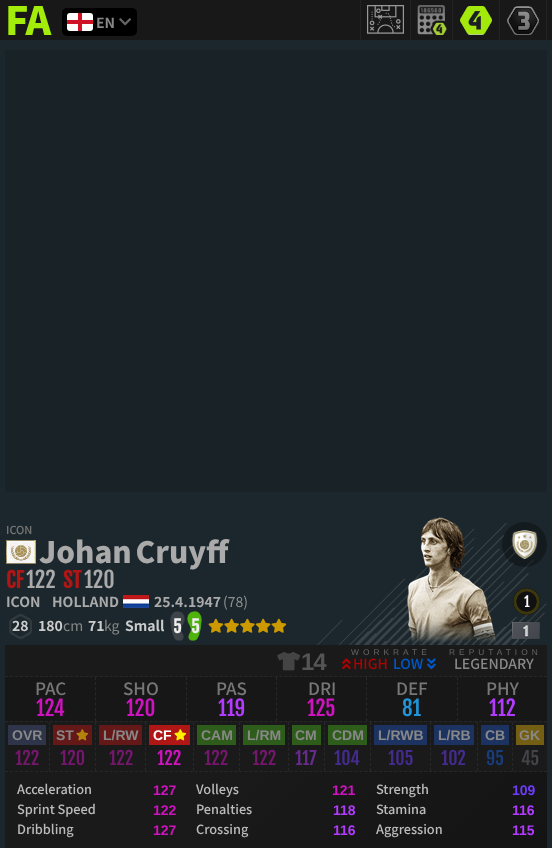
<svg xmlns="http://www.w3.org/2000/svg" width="552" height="848">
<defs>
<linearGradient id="g1" gradientUnits="userSpaceOnUse" x1="489" y1="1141" x2="63" y2="714"><stop offset="0" stop-color="#101010"/><stop offset="0.75" stop-color="#1a1a1a"/></linearGradient>
</defs>
<rect width="100%" height="100%" fill="#181818"/>
<rect x="360" width="1" height="40" fill="#222"/>
<text x="5" y="35" style="font-family:Noto Sans SC;font-size:39px;font-weight:900;letter-spacing:-1px;fill:#a4ec09">FA</text>
<rect x="62" y="8" width="75" height="28" rx="5" fill="#000"/>
<rect x="67" y="13" width="26" height="18" rx="3" fill="#fff"/>
<rect x="78" y="13" width="4" height="18" fill="#ce1124"/>
<rect x="67" y="20" width="26" height="4" fill="#ce1124"/>
<text x="96" y="28" style="font-family:Noto Sans SC;font-size:14px;font-weight:bold;fill:#888">EN</text>
<image x="119" y="18" width="12" height="8" href="media/1.png"/>
<rect x="410" width="1" height="40" fill="#222"/>
<image x="367" y="5" width="37" height="29" href="media/2.png"/>
<rect x="452" width="1" height="40" fill="#222"/>
<image x="417" y="5" width="30" height="30" href="media/3.png"/>
<rect x="499" width="1" height="40" fill="#222"/>
<image x="460" y="6" width="32" height="29" href="media/4.png"/>
<rect x="546" width="1" height="40" fill="#222"/>
<image x="507" y="6" width="32" height="29" href="media/5.png"/>
<rect y="40" width="552" height="808" fill="#1c272d"/>
<rect x="5" y="50" width="542" height="442" fill="#192327"/>
<image x="317" y="523" width="230" height="122" href="media/6.png"/>
<text x="6" y="534" style="font-family:Noto Sans SC;font-size:11px;font-weight:500;fill:#777">ICON</text>
<image x="6" y="540" width="30" height="24" href="media/7.png"/>
<text x="39" y="563" word-spacing="-3" style="font-family:Noto Sans SC;font-size:29.5px;font-weight:900;fill:#aaa">Johan Cruyff</text>
<text x="6" y="588" style="font-family:Fjalla One;font-size:21px;font-weight:bold;fill:#af1616">CF</text>
<text x="26" y="588" style="font-family:Fjalla One;font-size:22px;fill:#aaa">122</text>
<text x="63" y="588" style="font-family:Fjalla One;font-size:21px;font-weight:bold;fill:#af1616">ST</text>
<text x="84" y="588" style="font-family:Fjalla One;font-size:22px;fill:#aaa">120</text>
<text x="6" y="607" style="font-family:Noto Sans SC;font-size:14px;font-weight:bold;fill:#aaa">ICON</text>
<text x="52" y="607" style="font-family:Noto Sans SC;font-size:14px;font-weight:bold;fill:#aaa">HOLLAND</text>
<image x="123" y="595" width="26" height="13" href="media/8.png"/>
<text x="154" y="607" style="font-family:Noto Sans SC;font-size:14px;font-weight:bold;fill:#aaa">25.4.1947</text>
<text x="223" y="607" style="font-family:Noto Sans SC;font-size:14px;fill:#8e9091">(78)</text>
<image x="9" y="614" width="23" height="25" href="media/9.png"/>
<text x="12" y="631" style="font-family:Noto Sans SC;font-size:14px;font-weight:bold;fill:#ccc">28</text>
<text x="38" y="631" style="font-family:Noto Sans SC;font-size:14px;font-weight:bold;fill:#ccc">180</text>
<text x="63" y="631" style="font-family:Noto Sans SC;font-size:14px;fill:#888">cm</text>
<text x="88" y="631" style="font-family:Noto Sans SC;font-size:14px;font-weight:bold;fill:#ccc">71</text>
<text x="104" y="631" style="font-family:Noto Sans SC;font-size:14px;fill:#888">kg</text>
<text x="125" y="631" style="font-family:Noto Sans SC;font-size:14px;font-weight:bold;fill:#ccc">Small</text>
<image x="170" y="611" width="15" height="30" href="media/10.png"/>
<image x="187" y="611" width="15" height="30" href="media/11.png"/>
<text x="173" y="633" style="font-family:Fjalla One;font-size:17px;font-weight:bold;fill:#eee">5</text>
<text x="191" y="633" style="font-family:Fjalla One;font-size:17px;font-weight:bold;fill:#eee">5</text>
<image x="208" y="618" width="79" height="15" href="media/12.png"/>
<image x="407" y="517" width="89" height="126" href="media/13.png"/>
<circle cx="524.5" cy="544.5" r="22.5" fill="#0000004d"/>
<image x="511" y="530" width="27" height="29" href="media/14.png"/>
<circle cx="526.5" cy="601.5" r="13.5" fill="#111"/>
<image x="513" y="588" width="27" height="27" href="media/15.png"/>
<text x="524" y="607" style="font-family:Fjalla One;font-size:14px;fill:#fff">1</text>
<image x="512" y="622" width="28" height="17" href="media/16.png"/>
<rect x="5" y="645" width="542" height="32" fill="#1a1a1a"/>
<path d="M5 676.5h542" fill="none" stroke="#282828" stroke-dasharray="3 1.99"/>
<image x="277" y="651" width="24" height="20" href="media/17.png"/>
<text x="301" y="670" style="font-family:Liberation Sans;font-size:24px;font-weight:bold;letter-spacing:-1px;fill:#555">14</text>
<text x="351" y="655" style="font-family:Liberation Sans;font-size:8.4px;letter-spacing:4px;fill:#666">WORKRATE</text>
<image x="342" y="658" width="9" height="12" href="media/18.png"/>
<text x="353" y="669" style="font-family:Noto Sans SC;font-size:14px;font-weight:500;fill:#af0101">HIGH</text>
<text x="393" y="669" style="font-family:Noto Sans SC;font-size:14px;font-weight:500;fill:#0058c6">LOW</text>
<image x="427" y="658" width="9" height="12" href="media/19.png"/>
<text x="449" y="655" style="font-family:Liberation Sans;font-size:8.4px;letter-spacing:4px;fill:#666">REPUTATION</text>
<text x="454" y="669" style="font-family:Noto Sans SC;font-size:14px;font-weight:500;fill:#888">LEGENDARY</text>
<rect x="5" y="677" width="542" height="44" fill="#171717"/>
<text x="35" y="695" style="font-family:Noto Sans SC;font-size:17px;font-weight:500;fill:#777">PAC</text>
<text x="36" y="716" style="font-family:Fjalla One;font-size:21px;fill:#cf13c0">124</text>
<path d="M95.5 677v44" fill="none" stroke="#282828" stroke-dasharray="3 2.12"/>
<text x="123" y="695" style="font-family:Noto Sans SC;font-size:17px;font-weight:500;fill:#777">SHO</text>
<text x="126" y="716" style="font-family:Fjalla One;font-size:21px;fill:#cf13c0">120</text>
<path d="M186.5 677v44" fill="none" stroke="#282828" stroke-dasharray="3 2.12"/>
<text x="216" y="695" style="font-family:Noto Sans SC;font-size:17px;font-weight:500;fill:#777">PAS</text>
<text x="218" y="716" style="font-family:Fjalla One;font-size:21px;fill:#b33bff">119</text>
<path d="M276.5 677v44" fill="none" stroke="#282828" stroke-dasharray="3 2.12"/>
<text x="308" y="695" style="font-family:Noto Sans SC;font-size:17px;font-weight:500;fill:#777">DRI</text>
<text x="307" y="716" style="font-family:Fjalla One;font-size:21px;fill:#cf13c0">125</text>
<path d="M366.5 677v44" fill="none" stroke="#282828" stroke-dasharray="3 2.12"/>
<text x="396" y="695" style="font-family:Noto Sans SC;font-size:17px;font-weight:500;fill:#777">DEF</text>
<text x="402" y="716" style="font-family:Fjalla One;font-size:21px;fill:#2194d6">81</text>
<path d="M457.5 677v44" fill="none" stroke="#282828" stroke-dasharray="3 2.12"/>
<text x="486" y="695" style="font-family:Noto Sans SC;font-size:17px;font-weight:500;fill:#777">PHY</text>
<text x="489" y="716" style="font-family:Fjalla One;font-size:21px;fill:#b33bff">112</text>
<rect x="5" y="721" width="542" height="51" fill="#1a1a1a"/>
<path d="M5 721.5h542" fill="none" stroke="#282828" stroke-dasharray="3 1.99"/>
<path d="M5 771.5h542" fill="none" stroke="#282828" stroke-dasharray="3 1.99"/>
<rect x="8" y="725" width="38" height="20" fill="#2e3449"/>
<text x="12" y="740" style="font-family:Liberation Sans;font-size:14px;font-weight:bold;fill:#888">OVR</text>
<text x="15" y="765" style="font-family:Fjalla One;font-size:18px;fill:#75176d">122</text>
<path d="M49.5 722v49m46-49v49" fill="none" stroke="#282828" stroke-dasharray="3 2.11"/>
<rect x="53" y="725" width="39" height="20" fill="#651818"/>
<text x="56" y="740" style="font-family:Liberation Sans;font-size:14px;font-weight:bold;fill:#888">ST</text>
<image x="76" y="729" width="13" height="12" href="media/20.png"/>
<text x="60" y="765" style="font-family:Fjalla One;font-size:18px;fill:#75176d">120</text>
<rect x="99" y="725" width="43" height="20" fill="#651818"/>
<text x="103" y="740" style="font-family:Liberation Sans;font-size:14px;font-weight:bold;fill:#888">L/RW</text>
<text x="109" y="765" style="font-family:Fjalla One;font-size:18px;fill:#75176d">122</text>
<path d="M145.5 722v49" fill="none" stroke="#282828" stroke-dasharray="3 2.11"/>
<rect x="149" y="725" width="41" height="20" fill="#af1616"/>
<text x="153" y="740" style="font-family:Liberation Sans;font-size:14px;font-weight:bold;fill:#fff">CF</text>
<image x="174" y="729" width="13" height="12" href="media/21.png"/>
<text x="157" y="765" style="font-family:Fjalla One;font-size:18px;fill:#cf13c0">122</text>
<path d="M193.5 722v49m46-49v49" fill="none" stroke="#282828" stroke-dasharray="3 2.11"/>
<rect x="197" y="725" width="39" height="20" fill="#2e5d1b"/>
<text x="201" y="740" style="font-family:Liberation Sans;font-size:14px;font-weight:bold;fill:#888">CAM</text>
<text x="204" y="765" style="font-family:Fjalla One;font-size:18px;fill:#75176d">122</text>
<rect x="243" y="725" width="42" height="20" fill="#2e5d1b"/>
<text x="247" y="740" style="font-family:Liberation Sans;font-size:14px;font-weight:bold;fill:#888">L/RM</text>
<text x="252" y="765" style="font-family:Fjalla One;font-size:18px;fill:#75176d">122</text>
<path d="M288.5 722v49m36-49v49" fill="none" stroke="#282828" stroke-dasharray="3 2.11"/>
<rect x="292" y="725" width="29" height="20" fill="#2e5d1b"/>
<text x="295" y="740" style="font-family:Liberation Sans;font-size:14px;font-weight:bold;fill:#888">CM</text>
<text x="295" y="765" style="font-family:Fjalla One;font-size:18px;fill:#672b8d">117</text>
<rect x="328" y="725" width="39" height="20" fill="#2e5d1b"/>
<text x="332" y="740" style="font-family:Liberation Sans;font-size:14px;font-weight:bold;fill:#888">CDM</text>
<text x="334" y="765" style="font-family:Fjalla One;font-size:18px;fill:#442b8d">104</text>
<path d="M370.5 722v49m60-49v49" fill="none" stroke="#282828" stroke-dasharray="3 2.11"/>
<rect x="374" y="725" width="53" height="20" fill="#1c3361"/>
<text x="378" y="740" style="font-family:Liberation Sans;font-size:14px;font-weight:bold;fill:#888">L/RWB</text>
<text x="388" y="765" style="font-family:Fjalla One;font-size:18px;fill:#442b8d">105</text>
<rect x="434" y="725" width="40" height="20" fill="#1c3361"/>
<text x="438" y="740" style="font-family:Liberation Sans;font-size:14px;font-weight:bold;fill:#888">L/RB</text>
<text x="441" y="765" style="font-family:Fjalla One;font-size:18px;fill:#442b8d">102</text>
<path d="M477.5 722v49m35-49v49" fill="none" stroke="#282828" stroke-dasharray="3 2.11"/>
<rect x="481" y="725" width="28" height="20" fill="#1c3361"/>
<text x="485" y="740" style="font-family:Liberation Sans;font-size:14px;font-weight:bold;fill:#888">CB</text>
<text x="486" y="765" style="font-family:Fjalla One;font-size:18px;fill:#193c7c">95</text>
<rect x="516" y="725" width="28" height="20" fill="#745e13"/>
<text x="519" y="740" style="font-family:Liberation Sans;font-size:14px;font-weight:bold;fill:#888">GK</text>
<text x="521" y="765" style="font-family:Fjalla One;font-size:18px;fill:#434448">45</text>
<rect x="5" y="772" width="542" height="76" fill="url(#g1)"/>
<text x="17" y="794" style="font-family:Noto Sans SC;font-size:12.75px;font-weight:500;fill:#bbb">Acceleration</text>
<text x="153" y="795" style="font-family:Liberation Sans;font-size:14px;font-weight:bold;fill:#cf13c0">127</text>
<text x="196" y="794" style="font-family:Noto Sans SC;font-size:12.75px;font-weight:500;fill:#bbb">Volleys</text>
<text x="332" y="795" style="font-family:Liberation Sans;font-size:14px;font-weight:bold;fill:#cf13c0">121</text>
<text x="376" y="794" style="font-family:Noto Sans SC;font-size:12.75px;font-weight:500;fill:#bbb">Strength</text>
<text x="512" y="795" style="font-family:Liberation Sans;font-size:14px;font-weight:bold;fill:#6e3bff">109</text>
<text x="17" y="814" style="font-family:Noto Sans SC;font-size:12.75px;font-weight:500;fill:#bbb">Sprint Speed</text>
<text x="153" y="815" style="font-family:Liberation Sans;font-size:14px;font-weight:bold;fill:#cf13c0">122</text>
<text x="196" y="814" style="font-family:Noto Sans SC;font-size:12.75px;font-weight:500;fill:#bbb">Penalties</text>
<text x="333" y="815" style="font-family:Liberation Sans;font-size:14px;font-weight:bold;fill:#b33bff">118</text>
<text x="376" y="814" style="font-family:Noto Sans SC;font-size:12.75px;font-weight:500;fill:#bbb">Stamina</text>
<text x="512" y="815" style="font-family:Liberation Sans;font-size:14px;font-weight:bold;fill:#b33bff">116</text>
<text x="17" y="834" style="font-family:Noto Sans SC;font-size:12.75px;font-weight:500;fill:#bbb">Dribbling</text>
<text x="153" y="835" style="font-family:Liberation Sans;font-size:14px;font-weight:bold;fill:#cf13c0">127</text>
<text x="196" y="834" style="font-family:Noto Sans SC;font-size:12.75px;font-weight:500;fill:#bbb">Crossing</text>
<text x="333" y="835" style="font-family:Liberation Sans;font-size:14px;font-weight:bold;fill:#b33bff">116</text>
<text x="376" y="834" style="font-family:Noto Sans SC;font-size:12.75px;font-weight:500;fill:#bbb">Aggression</text>
<text x="512" y="835" style="font-family:Liberation Sans;font-size:14px;font-weight:bold;fill:#b33bff">115</text>
</svg>
